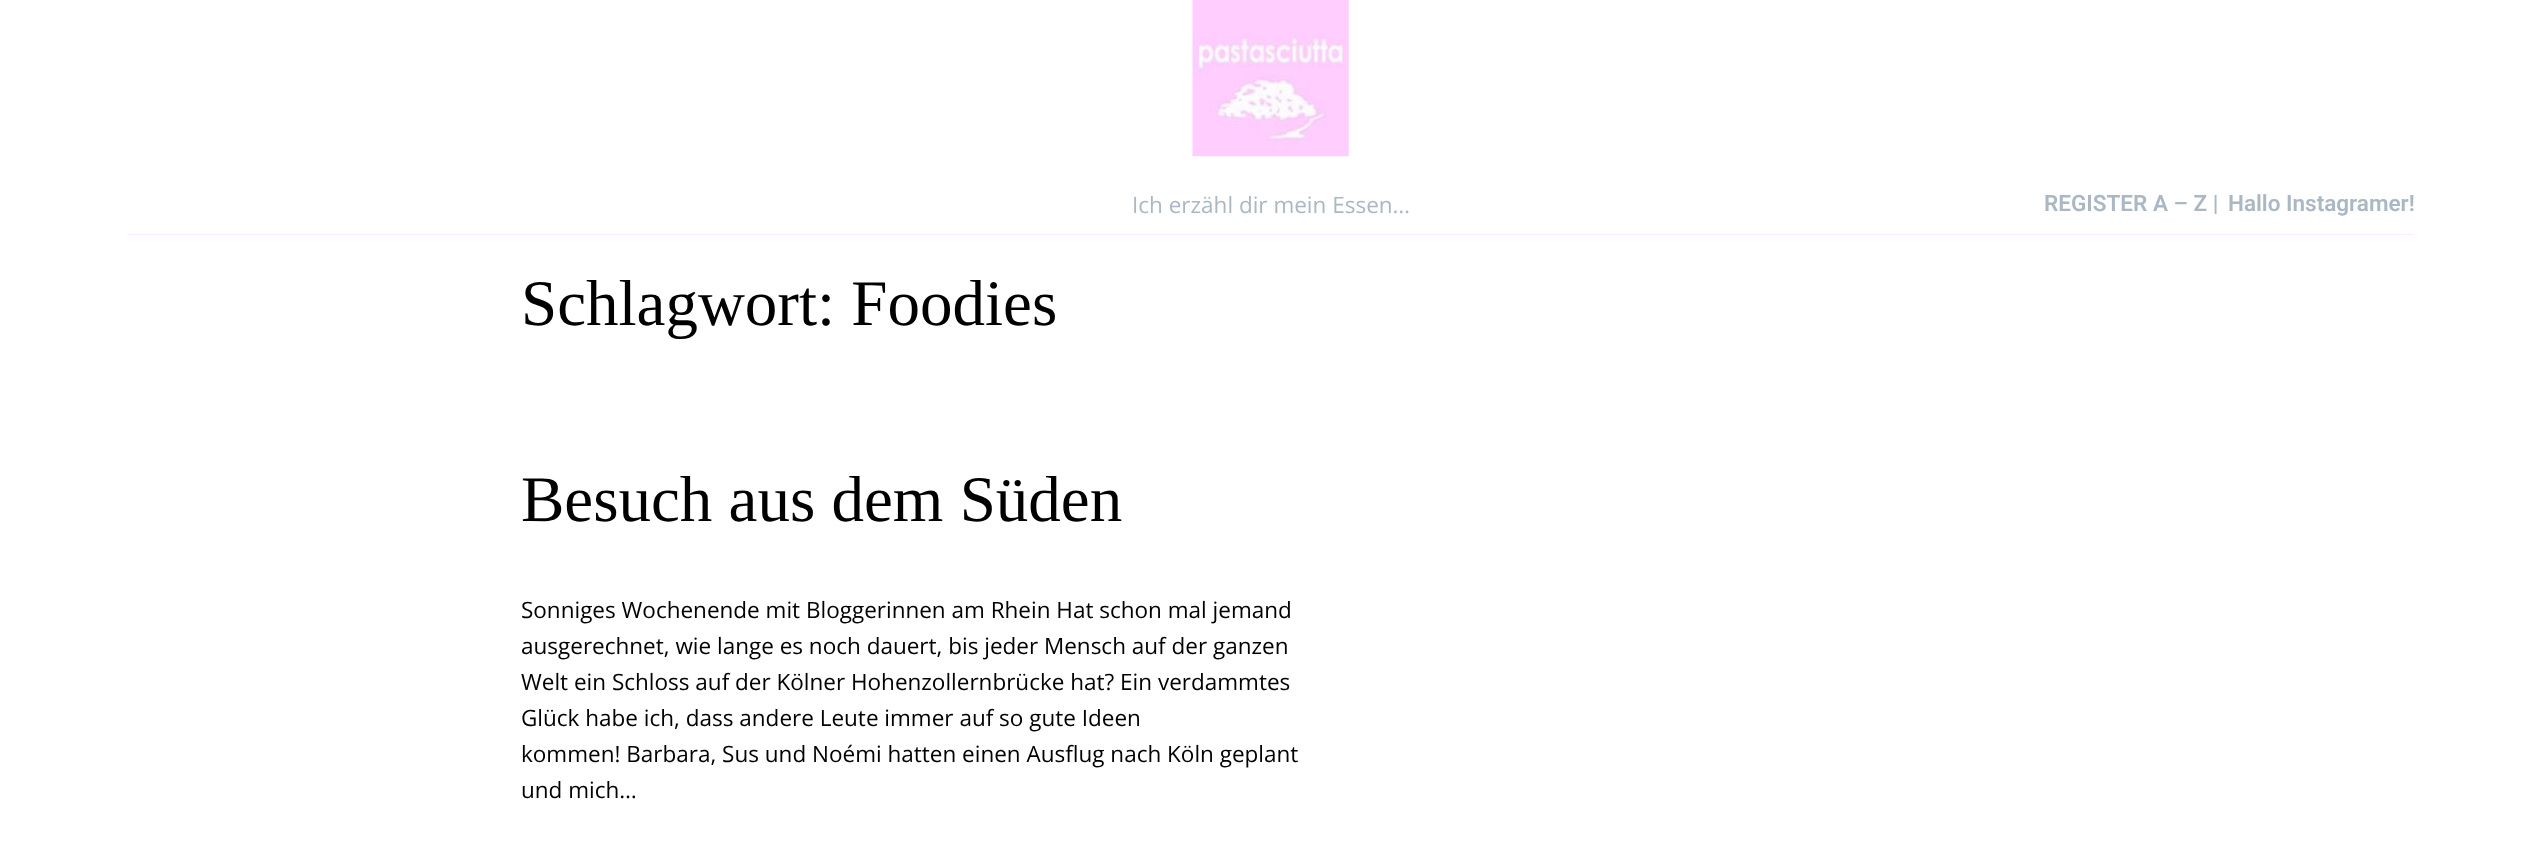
<svg xmlns="http://www.w3.org/2000/svg" width="2541" height="851">
<rect width="100%" height="100%" fill="#fff"/>
<image x="1192" y="0" width="157" height="157" href="media/1.png"/>
<text x="1132" y="213" style="font-family:Open Sans;font-size:22.5px;fill:#abb8c3">Ich erzähl dir mein Essen…</text>
<text x="2044" y="211" style="font-family:Roboto;font-size:22.5px;font-weight:600;fill:#abb8c3">REGISTER A – Z |</text>
<text x="2228" y="211" style="font-family:Roboto;font-size:22.5px;font-weight:600;fill:#abb8c3">Hallo Instagramer!</text>
<rect x="128" y="234" width="2286" height="1" fill="#ffebff"/>
<text x="521" y="325" style="font-family:Liberation Serif;font-size:65px;fill:#000">Schlagwort: Foodies</text>
<text x="521" y="521" style="font-family:Liberation Serif;font-size:65px;fill:#000">Besuch aus dem Süden</text>
<text x="521" y="618" style="font-family:Open Sans;font-size:22.5px;fill:#000">Sonniges Wochenende mit Bloggerinnen am Rhein Hat schon mal jemand</text>
<text x="521" y="654" style="font-family:Open Sans;font-size:22.5px;fill:#000">ausgerechnet, wie lange es noch dauert, bis jeder Mensch auf der ganzen</text>
<text x="521" y="690" style="font-family:Open Sans;font-size:22.5px;fill:#000">Welt ein Schloss auf der Kölner Hohenzollernbrücke hat? Ein verdammtes</text>
<text x="521" y="726" style="font-family:Open Sans;font-size:22.5px;fill:#000">Glück habe ich, dass andere Leute immer auf so gute Ideen</text>
<text x="521" y="762" style="font-family:Open Sans;font-size:22.5px;fill:#000">kommen! Barbara, Sus und Noémi hatten einen Ausflug nach Köln geplant</text>
<text x="521" y="798" style="font-family:Open Sans;font-size:22.5px;fill:#000">und mich…</text>
</svg>
